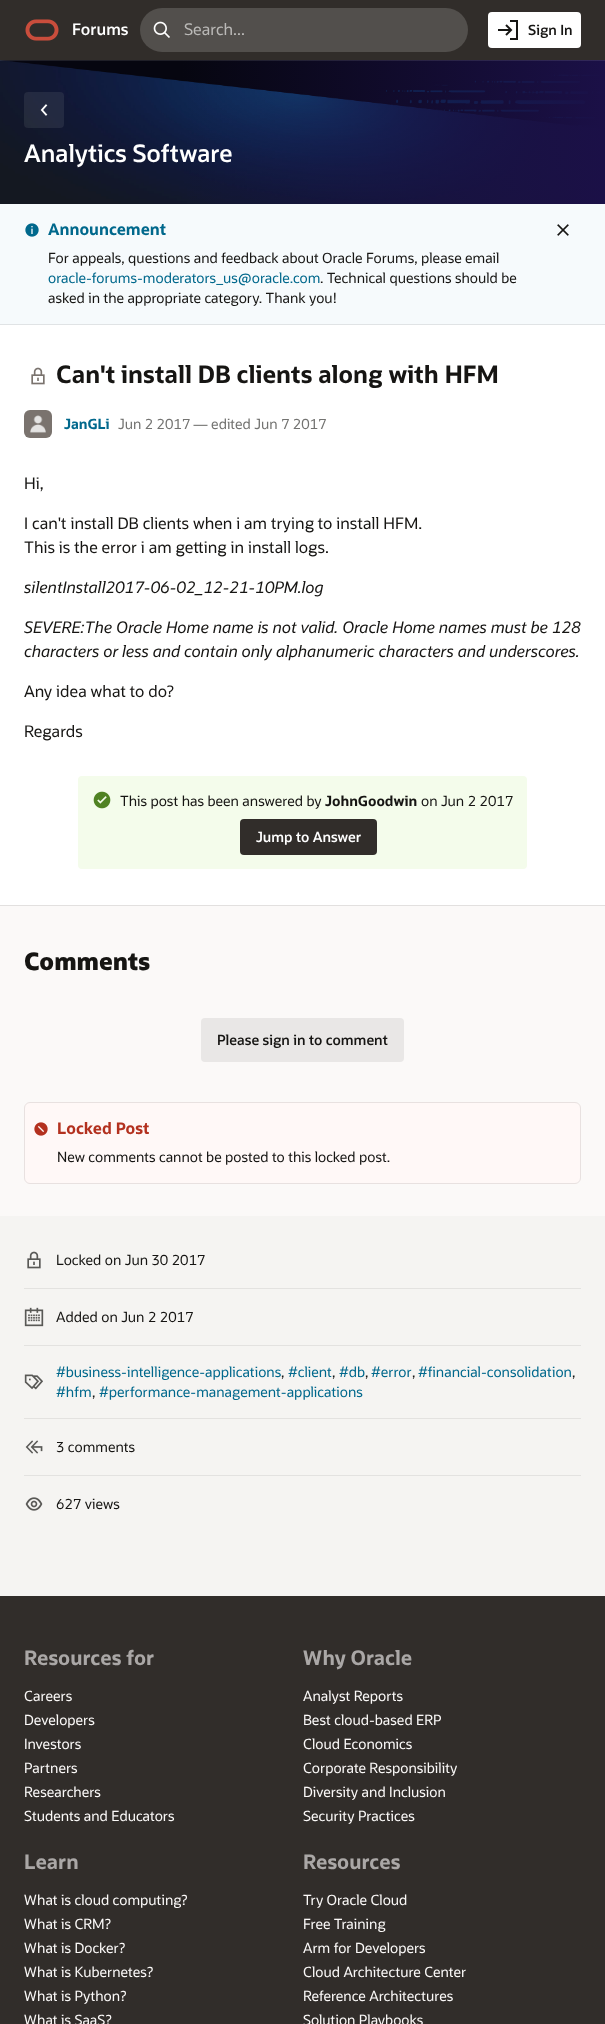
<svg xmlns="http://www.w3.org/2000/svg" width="605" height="2024">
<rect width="100%" height="100%" fill="#312d2a"/>
<image x="0" y="60" width="605" height="144" href="media/4.png"/>
<rect x="-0.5" y="-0.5" width="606" height="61" fill="none" stroke="#ffffff1a"/>
<image x="25" y="19" width="34" height="22" href="media/1.png"/>
<text x="72" y="35" style="font-family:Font;font-size:16px;font-weight:600;fill:#fff">Forums</text>
<rect x="140" y="8" width="328" height="44" rx="22" fill="#524f4c"/>
<image x="153" y="21" width="17" height="17" href="media/2.png"/>
<text x="184" y="35" style="font-family:Font;font-size:16px;fill:#bab9b7">Search...</text>
<rect x="488" y="12" width="93" height="36" rx="4" fill="#fff"/>
<image x="498" y="20" width="20" height="20" href="media/3.png"/>
<text x="528" y="35" style="font-family:Font;font-size:14px;font-weight:600;fill:#161513">Sign In</text>
<rect x="24" y="92" width="40" height="36" rx="4" fill="#fbf9f814"/>
<image x="40" y="104" width="8" height="12" href="media/5.png"/>
<text x="24" y="162" style="font-family:Font;font-size:24px;font-weight:600;fill:#fff">Analytics Software</text>
<rect y="906" width="605" height="310" fill="#fbf9f8"/>
<rect y="204" width="605" height="120" fill="#f6fafc"/>
<rect y="324" width="605" height="1" fill="#e0e3e5"/>
<image x="25" y="223" width="14" height="14" href="media/6.png"/>
<text x="48" y="235" style="font-family:Font;font-size:16px;font-weight:bold;fill:#00688c">Announcement</text>
<text x="48" y="263" style="font-family:Font;font-size:14px;fill:#161513">For appeals, questions and feedback about Oracle Forums, please email</text>
<text x="48" y="283" style="font-family:Font;font-size:14px;fill:#00688c">oracle-forums-moderators_us@oracle.com</text>
<text x="320" y="283" style="font-family:Font;font-size:14px;fill:#161513">. Technical questions should be</text>
<text x="48" y="303" style="font-family:Font;font-size:14px;fill:#161513">asked in the appropriate category. Thank you!</text>
<image x="557" y="224" width="12" height="12" href="media/7.png"/>
<rect y="325" width="605" height="580" fill="#fff"/>
<image x="31" y="367" width="14" height="18" href="media/8.png"/>
<text x="56" y="383" style="font-family:Font;font-size:24px;font-weight:bold;fill:#161513">Can't install DB clients along with HFM</text>
<image x="24" y="410" width="28" height="28" href="media/9.png"/>
<text x="64" y="429" style="font-family:Font;font-size:14px;font-weight:bold;fill:#00688c">JanGLi</text>
<text x="118" y="429" style="font-family:Font;font-size:14px;fill:#737371">Jun 2 2017 — edited Jun 7 2017</text>
<text x="24" y="489" style="font-family:Font;font-size:16px;fill:#161513">Hi,</text>
<text x="24" y="529" style="font-family:Font;font-size:16px;fill:#161513">I can't install DB clients when i am trying to install HFM.</text>
<text x="24" y="553" style="font-family:Font;font-size:16px;fill:#161513">This is the error i am getting in install logs.</text>
<text x="24" y="593" style="font-family:Font;font-size:16px;font-style:italic;fill:#161513">silentInstall2017-06-02_12-21-10PM.log</text>
<text x="24" y="633" style="font-family:Font;font-size:16px;font-style:italic;fill:#161513">SEVERE:The Oracle Home name is not valid. Oracle Home names must be 128</text>
<text x="24" y="657" style="font-family:Font;font-size:16px;font-style:italic;fill:#161513">characters or less and contain only alphanumeric characters and underscores.</text>
<text x="24" y="697" style="font-family:Font;font-size:16px;fill:#161513">Any idea what to do?</text>
<text x="24" y="737" style="font-family:Font;font-size:16px;fill:#161513">Regards</text>
<rect x="78" y="776" width="449" height="93" rx="4" fill="#f4fceb"/>
<image x="93" y="791" width="18" height="18" href="media/10.png"/>
<text x="120" y="806" style="font-family:Font;font-size:14px;fill:#161513">This post has been answered by</text>
<text x="325" y="806" style="font-family:Font;font-size:14px;font-weight:bold;fill:#161513">JohnGoodwin</text>
<text x="421" y="806" style="font-family:Font;font-size:14px;fill:#161513">on Jun 2 2017</text>
<rect x="240" y="819" width="137" height="36" rx="4" fill="#312d2a"/>
<text x="256" y="842" style="font-family:Font;font-size:14px;font-weight:600;fill:#fff">Jump to Answer</text>
<rect y="905" width="605" height="1" fill="#e2e0df"/>
<text x="24" y="970" style="font-family:Font;font-size:24px;font-weight:800;fill:#161513">Comments</text>
<rect x="201" y="1018" width="203" height="44" rx="4" fill="#e9e7e6"/>
<text x="217" y="1045" style="font-family:Font;font-size:14px;font-weight:600;fill:#161513">Please sign in to comment</text>
<rect x="24.5" y="1102.5" width="556" height="81" rx="5.5" fill="#fff8f7" stroke="#e8e1e0"/>
<image x="34" y="1122" width="14" height="14" href="media/11.png"/>
<text x="57" y="1134" style="font-family:Font;font-size:16px;font-weight:bold;fill:#b3311f">Locked Post</text>
<text x="57" y="1162" style="font-family:Font;font-size:14px;fill:#161513">New comments cannot be posted to this locked post.</text>
<rect y="1216" width="605" height="380" fill="#f5f4f2"/>
<rect x="24" y="1288" width="557" height="1" fill="#e3e2e0"/>
<image x="27" y="1251" width="14" height="18" href="media/12.png"/>
<text x="56" y="1265" style="font-family:Font;font-size:14px;fill:#161513">Locked on Jun 30 2017</text>
<rect x="24" y="1345" width="557" height="1" fill="#e3e2e0"/>
<image x="24" y="1307" width="20" height="20" href="media/13.png"/>
<text x="56" y="1322" style="font-family:Font;font-size:14px;fill:#161513">Added on Jun 2 2017</text>
<rect x="24" y="1418" width="557" height="1" fill="#e3e2e0"/>
<image x="24" y="1374" width="19" height="16" href="media/14.png"/>
<text x="56" y="1377" style="font-family:Font;font-size:14px;fill:#00688c">#business-intelligence-applications</text>
<text x="281" y="1377" style="font-family:Font;font-size:14px;fill:#161513">,</text>
<text x="288" y="1377" style="font-family:Font;font-size:14px;fill:#00688c">#client</text>
<text x="332" y="1377" style="font-family:Font;font-size:14px;fill:#161513">,</text>
<text x="339" y="1377" style="font-family:Font;font-size:14px;fill:#00688c">#db</text>
<text x="365" y="1377" style="font-family:Font;font-size:14px;fill:#161513">,</text>
<text x="371" y="1377" style="font-family:Font;font-size:14px;fill:#00688c">#error</text>
<text x="412" y="1377" style="font-family:Font;font-size:14px;fill:#161513">,</text>
<text x="418" y="1377" style="font-family:Font;font-size:14px;fill:#00688c">#financial-consolidation</text>
<text x="572" y="1377" style="font-family:Font;font-size:14px;fill:#161513">,</text>
<text x="56" y="1397" style="font-family:Font;font-size:14px;fill:#00688c">#hfm</text>
<text x="92" y="1397" style="font-family:Font;font-size:14px;fill:#161513">,</text>
<text x="99" y="1397" style="font-family:Font;font-size:14px;fill:#00688c">#performance-management-applications</text>
<rect x="24" y="1475" width="557" height="1" fill="#e3e2e0"/>
<image x="25" y="1440" width="18" height="14" href="media/15.png"/>
<text x="56" y="1452" style="font-family:Font;font-size:14px;fill:#161513">3 comments</text>
<image x="25" y="1497" width="18" height="14" href="media/16.png"/>
<text x="56" y="1509" style="font-family:Font;font-size:14px;fill:#161513">627 views</text>
<text x="24" y="1665" style="font-family:Font;font-size:20px;font-weight:bold;fill:#aaa7a6">Resources for</text>
<text x="24" y="1701" style="font-family:Font;font-size:14px;fill:#fbf9f8">Careers</text>
<text x="24" y="1725" style="font-family:Font;font-size:14px;fill:#fbf9f8">Developers</text>
<text x="24" y="1749" style="font-family:Font;font-size:14px;fill:#fbf9f8">Investors</text>
<text x="24" y="1773" style="font-family:Font;font-size:14px;fill:#fbf9f8">Partners</text>
<text x="24" y="1797" style="font-family:Font;font-size:14px;fill:#fbf9f8">Researchers</text>
<text x="24" y="1821" style="font-family:Font;font-size:14px;fill:#fbf9f8">Students and Educators</text>
<text x="303" y="1665" style="font-family:Font;font-size:20px;font-weight:bold;fill:#aaa7a6">Why Oracle</text>
<text x="303" y="1701" style="font-family:Font;font-size:14px;fill:#fbf9f8">Analyst Reports</text>
<text x="303" y="1725" style="font-family:Font;font-size:14px;fill:#fbf9f8">Best cloud-based ERP</text>
<text x="303" y="1749" style="font-family:Font;font-size:14px;fill:#fbf9f8">Cloud Economics</text>
<text x="303" y="1773" style="font-family:Font;font-size:14px;fill:#fbf9f8">Corporate Responsibility</text>
<text x="303" y="1797" style="font-family:Font;font-size:14px;fill:#fbf9f8">Diversity and Inclusion</text>
<text x="303" y="1821" style="font-family:Font;font-size:14px;fill:#fbf9f8">Security Practices</text>
<text x="24" y="1869" style="font-family:Font;font-size:20px;font-weight:bold;fill:#aaa7a6">Learn</text>
<text x="24" y="1905" style="font-family:Font;font-size:14px;fill:#fbf9f8">What is cloud computing?</text>
<text x="24" y="1929" style="font-family:Font;font-size:14px;fill:#fbf9f8">What is CRM?</text>
<text x="24" y="1953" style="font-family:Font;font-size:14px;fill:#fbf9f8">What is Docker?</text>
<text x="24" y="1977" style="font-family:Font;font-size:14px;fill:#fbf9f8">What is Kubernetes?</text>
<text x="24" y="2001" style="font-family:Font;font-size:14px;fill:#fbf9f8">What is Python?</text>
<text x="24" y="2025" style="font-family:Font;font-size:14px;fill:#fbf9f8">What is SaaS?</text>
<text x="303" y="1869" style="font-family:Font;font-size:20px;font-weight:bold;fill:#aaa7a6">Resources</text>
<text x="303" y="1905" style="font-family:Font;font-size:14px;fill:#fbf9f8">Try Oracle Cloud</text>
<text x="303" y="1929" style="font-family:Font;font-size:14px;fill:#fbf9f8">Free Training</text>
<text x="303" y="1953" style="font-family:Font;font-size:14px;fill:#fbf9f8">Arm for Developers</text>
<text x="303" y="1977" style="font-family:Font;font-size:14px;fill:#fbf9f8">Cloud Architecture Center</text>
<text x="303" y="2001" style="font-family:Font;font-size:14px;fill:#fbf9f8">Reference Architectures</text>
<text x="303" y="2025" style="font-family:Font;font-size:14px;fill:#fbf9f8">Solution Playbooks</text>
</svg>
